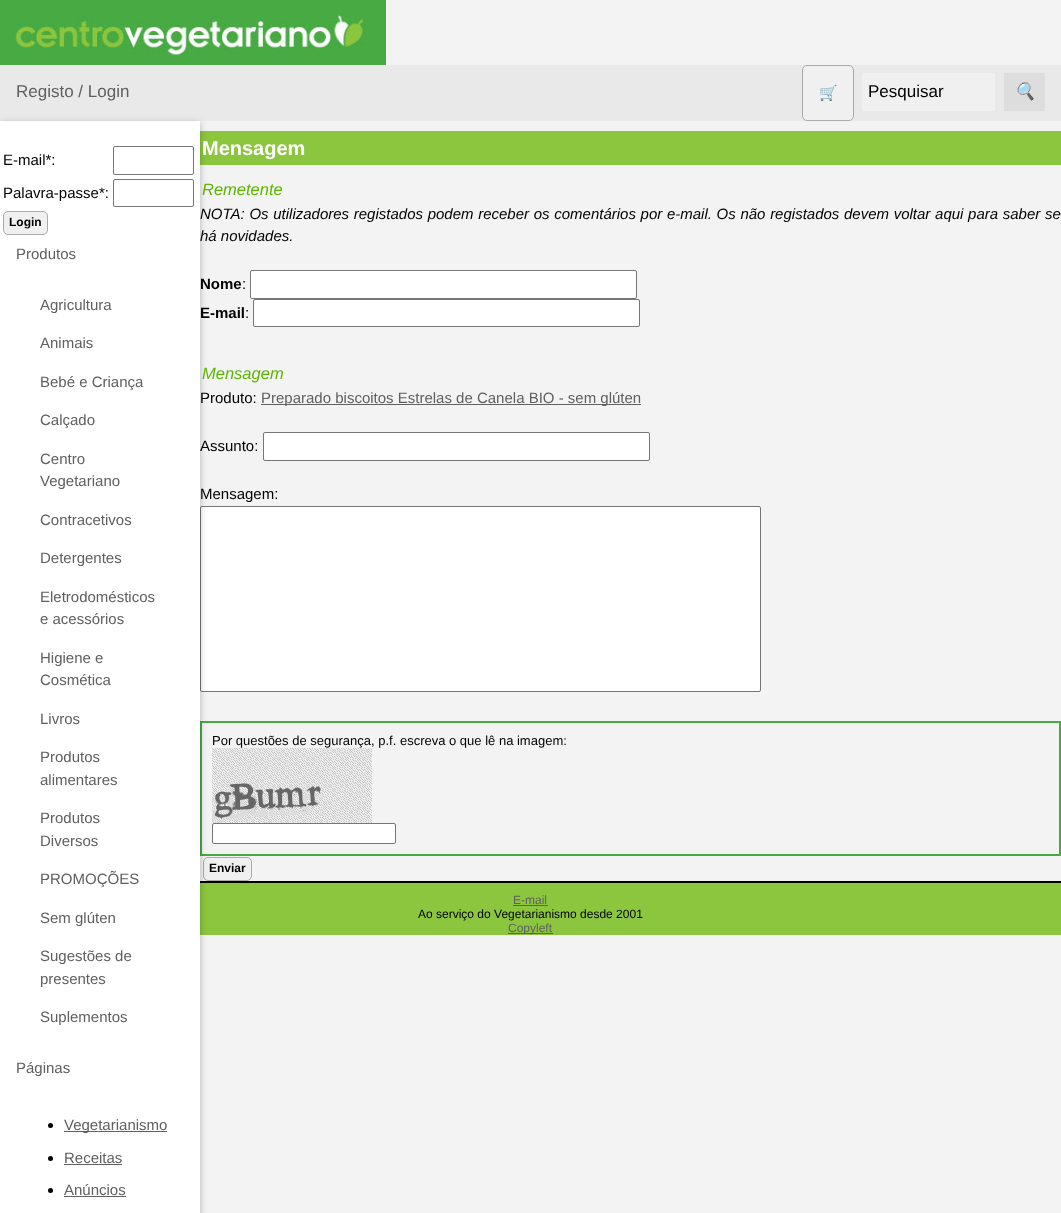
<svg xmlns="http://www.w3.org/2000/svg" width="1061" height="1213">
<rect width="100%" height="100%" fill="#f3f3f3"/>
<image x="0" y="0" width="386" height="65" href="media/1.png"/>
<rect y="65" width="1061" height="56" fill="#e9e9e9"/>
<text x="16" y="97" style="font-family:Liberation Sans;font-size:17px;fill:#606060">Registo / Login</text>
<rect x="802.5" y="65.5" width="51" height="55" rx="4.5" fill="#f0f0f0" stroke="#aaa"/>
<text x="819" y="98" style="font-family:Noto Color Emoji;font-size:15px;font-weight:bold;fill:#606060">🛒</text>
<rect x="862" y="73" width="133" height="38" fill="#f0f0f0"/>
<text x="868" y="97" style="font-family:Liberation Sans;font-size:17px;fill:#000">Pesquisar</text>
<rect x="1004" y="73" width="41" height="38" fill="#ddd"/>
<text x="1014" y="97" style="font-family:Noto Color Emoji;font-size:17px;font-style:italic;fill:#000">🔍</text>
<rect x="200" y="131" width="861" height="34" fill="#8cc63f"/>
<rect x="200.5" y="506.5" width="560" height="185" rx="1.5" fill="#fff" stroke="#767676"/>
<rect x="201" y="722" width="859" height="133" fill="none" stroke="#48aa43" stroke-width="2"/>
<image x="212" y="748" width="160" height="75" href="media/2.png"/>
<rect x="212.5" y="823.5" width="183" height="20" rx="1.5" fill="#fff" stroke="#767676"/>
<rect x="203.5" y="857.5" width="48" height="23" rx="4.5" fill="#f0f0f0" stroke="#aaa"/>
<rect x="200" y="883" width="861" height="52" fill="#8cc63f"/>
<rect x="200" y="881" width="861" height="2" fill="#000"/>
<rect y="123" width="200" height="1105" fill="#0000001f" filter="blur(5px)"/>
<rect y="123" width="200" height="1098" fill="#00000029" filter="blur(2.5px)"/>
<rect y="121" width="200" height="1092" fill="#fff"/>
<text x="3" y="165" style="font-family:Liberation Sans;font-size:15px;fill:#000">E-mail*:</text>
<rect x="113.5" y="146.5" width="80" height="28" rx="1.5" fill="none" stroke="#767676"/>
<text x="3" y="198" style="font-family:Liberation Sans;font-size:15px;fill:#000">Palavra-passe*:</text>
<rect x="113.5" y="179.5" width="80" height="27" rx="1.5" fill="none" stroke="#767676"/>
<rect x="3.5" y="211.5" width="44" height="23" rx="4.5" fill="#f0f0f0" stroke="#aaa"/>
<text x="9" y="226" style="font-family:Liberation Sans;font-size:12px;font-weight:bold;fill:#000">Login</text>
<text x="16" y="259" style="font-family:Liberation Sans;font-size:15px;fill:#606060">Produtos</text>
<text x="40" y="310" style="font-family:Liberation Sans;font-size:15px;fill:#606060">Agricultura</text>
<text x="40" y="348" style="font-family:Liberation Sans;font-size:15px;fill:#606060">Animais</text>
<text x="40" y="387" style="font-family:Liberation Sans;font-size:15px;fill:#606060">Bebé e Criança</text>
<text x="40" y="425" style="font-family:Liberation Sans;font-size:15px;fill:#606060">Calçado</text>
<text x="40" y="464" style="font-family:Liberation Sans;font-size:15px;fill:#606060">Centro</text>
<text x="40" y="486" style="font-family:Liberation Sans;font-size:15px;fill:#606060">Vegetariano</text>
<text x="40" y="525" style="font-family:Liberation Sans;font-size:15px;fill:#606060">Contracetivos</text>
<text x="40" y="563" style="font-family:Liberation Sans;font-size:15px;fill:#606060">Detergentes</text>
<text x="40" y="602" style="font-family:Liberation Sans;font-size:15px;fill:#606060">Eletrodomésticos</text>
<text x="40" y="624" style="font-family:Liberation Sans;font-size:15px;fill:#606060">e acessórios</text>
<text x="40" y="663" style="font-family:Liberation Sans;font-size:15px;fill:#606060">Higiene e</text>
<text x="40" y="685" style="font-family:Liberation Sans;font-size:15px;fill:#606060">Cosmética</text>
<text x="40" y="724" style="font-family:Liberation Sans;font-size:15px;fill:#606060">Livros</text>
<text x="40" y="762" style="font-family:Liberation Sans;font-size:15px;fill:#606060">Produtos</text>
<text x="40" y="785" style="font-family:Liberation Sans;font-size:15px;fill:#606060">alimentares</text>
<text x="40" y="823" style="font-family:Liberation Sans;font-size:15px;fill:#606060">Produtos</text>
<text x="40" y="846" style="font-family:Liberation Sans;font-size:15px;fill:#606060">Diversos</text>
<text x="40" y="884" style="font-family:Liberation Sans;font-size:15px;fill:#606060">PROMOÇÕES</text>
<text x="40" y="923" style="font-family:Liberation Sans;font-size:15px;fill:#606060">Sem glúten</text>
<text x="40" y="961" style="font-family:Liberation Sans;font-size:15px;fill:#606060">Sugestões de</text>
<text x="40" y="984" style="font-family:Liberation Sans;font-size:15px;fill:#606060">presentes</text>
<text x="40" y="1022" style="font-family:Liberation Sans;font-size:15px;fill:#606060">Suplementos</text>
<text x="16" y="1073" style="font-family:Liberation Sans;font-size:15px;fill:#606060">Páginas</text>
<circle cx="50.5" cy="1125.5" r="2.5" fill="#000"/>
<rect x="64" y="1131" width="103" height="1" fill="#606060"/>
<text x="64" y="1130" style="font-family:Liberation Sans;font-size:15px;fill:#606060">Vegetarianismo</text>
<circle cx="50.5" cy="1158.5" r="2.5" fill="#000"/>
<text x="64" y="1163" style="font-family:Liberation Sans;font-size:15px;fill:#606060">Receitas</text>
<rect x="64" y="1164" width="58" height="1" fill="#606060"/>
<circle cx="50.5" cy="1190.5" r="2.5" fill="#000"/>
<text x="64" y="1195" style="font-family:Liberation Sans;font-size:15px;fill:#606060">Anúncios</text>
<rect x="64" y="1196" width="62" height="1" fill="#606060"/>
<text x="202" y="155" style="font-family:Liberation Sans;font-size:20px;font-weight:bold;fill:#fff">Mensagem</text>
<text x="202" y="195" style="font-family:Liberation Sans;font-size:16.5px;font-style:italic;fill:#5db602">Remetente</text>
<text x="200" y="219" word-spacing="0.5" style="font-family:Liberation Sans;font-size:15px;font-style:italic;fill:#000">NOTA: Os utilizadores registados podem receber os comentários por e-mail. Os não registados devem voltar aqui para saber se</text>
<text x="200" y="241" style="font-family:Liberation Sans;font-size:15px;font-style:italic;fill:#000">há novidades.</text>
<text x="200" y="289" style="font-family:Liberation Sans;font-size:15px;font-weight:bold;fill:#000">Nome</text>
<text x="242" y="289" style="font-family:Liberation Sans;font-size:15px;fill:#000">:</text>
<rect x="250.5" y="270.5" width="386" height="28" rx="1.5" fill="#fff" stroke="#767676"/>
<text x="200" y="318" style="font-family:Liberation Sans;font-size:15px;font-weight:bold;fill:#000">E-mail</text>
<text x="245" y="318" style="font-family:Liberation Sans;font-size:15px;fill:#000">:</text>
<rect x="253.5" y="299.5" width="386" height="27" rx="1.5" fill="#fff" stroke="#767676"/>
<text x="202" y="379" style="font-family:Liberation Sans;font-size:16.5px;font-style:italic;fill:#5db602">Mensagem</text>
<text x="200" y="403" style="font-family:Liberation Sans;font-size:15px;fill:#000">Produto:</text>
<rect x="261" y="404" width="380" height="1" fill="#606060"/>
<text x="261" y="403" style="font-family:Liberation Sans;font-size:15px;fill:#606060">Preparado biscoitos Estrelas de Canela BIO - sem glúten</text>
<text x="200" y="451" style="font-family:Liberation Sans;font-size:15px;fill:#000">Assunto:</text>
<rect x="263.5" y="432.5" width="386" height="28" rx="1.5" fill="#fff" stroke="#767676"/>
<text x="200" y="499" style="font-family:Liberation Sans;font-size:15px;fill:#000">Mensagem:</text>
<text x="212" y="745" style="font-family:Liberation Sans;font-size:13px;fill:#000">Por questões de segurança, p.f. escreva o que lê na imagem:</text>
<text x="209" y="872" style="font-family:Liberation Sans;font-size:12px;font-weight:bold;fill:#000">Enviar</text>
<text x="513" y="904" style="font-family:Liberation Sans;font-size:12px;fill:#606060">E-mail</text>
<rect x="513" y="905" width="35" height="1" fill="#606060"/>
<text x="418" y="918" style="font-family:Liberation Sans;font-size:12px;fill:#000">Ao serviço do Vegetarianismo desde 2001</text>
<rect x="508" y="933" width="45" height="1" fill="#606060"/>
<text x="508" y="932" style="font-family:Liberation Sans;font-size:12px;fill:#606060">Copyleft</text>
</svg>
